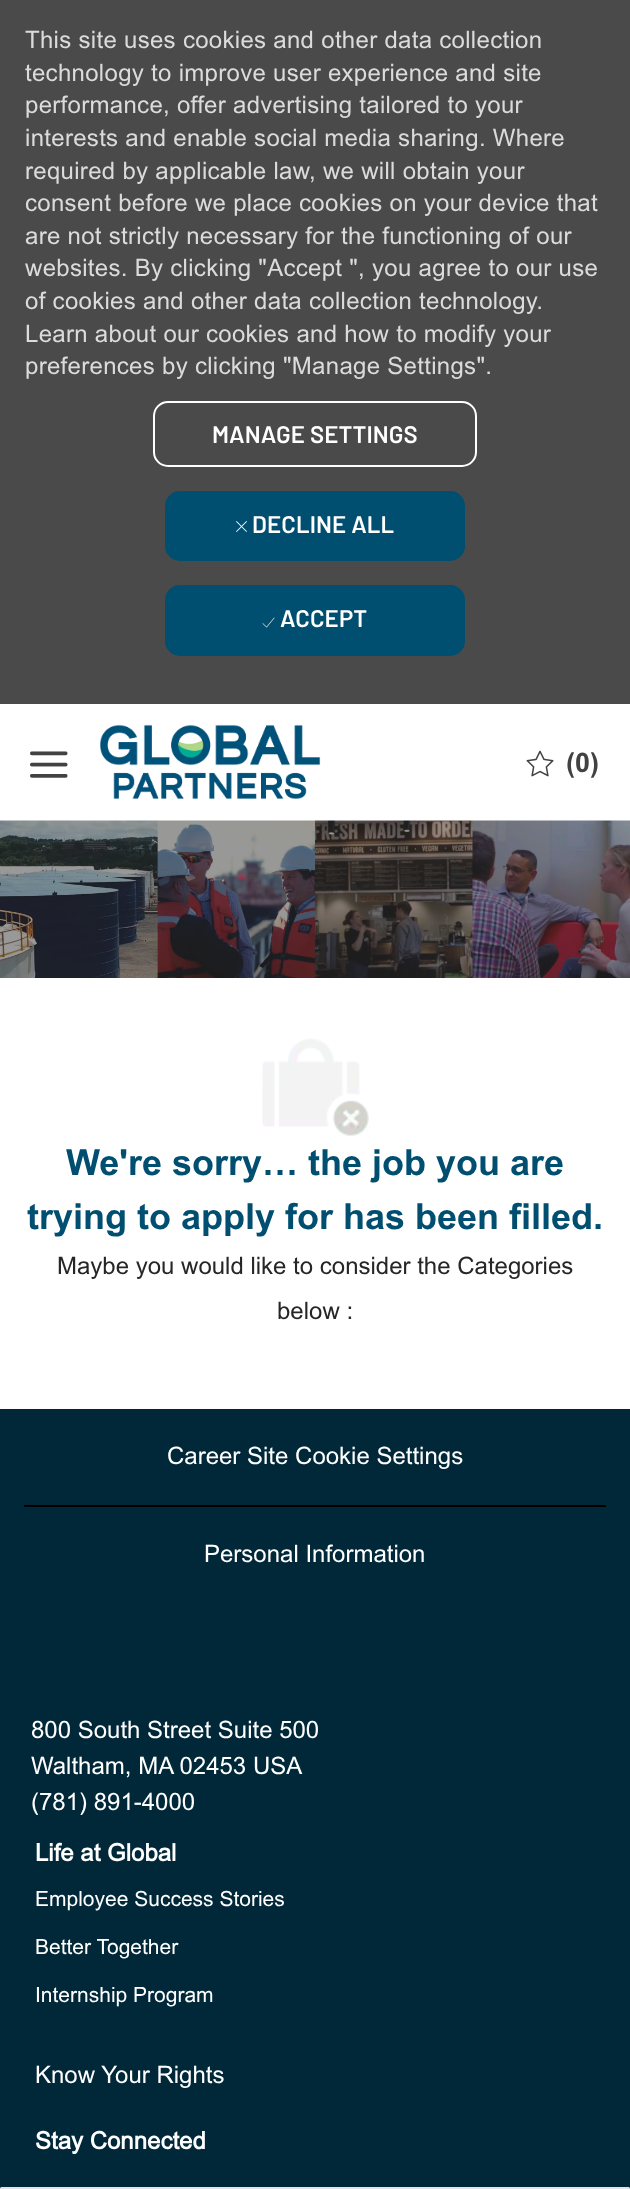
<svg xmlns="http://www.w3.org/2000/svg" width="630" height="2189">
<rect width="100%" height="100%" fill="#fff"/>
<rect width="630" height="704" fill="#4a4a4a"/>
<text x="25" y="48" style="font-family:Arial;font-size:24px;letter-spacing:0.3px;fill:#dbdbdb">This site uses cookies and other data collection</text>
<text x="25" y="81" style="font-family:Arial;font-size:24px;letter-spacing:0.3px;fill:#dbdbdb">technology to improve user experience and site</text>
<text x="25" y="113" style="font-family:Arial;font-size:24px;letter-spacing:0.3px;fill:#dbdbdb">performance, offer advertising tailored to your</text>
<text x="25" y="146" style="font-family:Arial;font-size:24px;letter-spacing:0.3px;fill:#dbdbdb">interests and enable social media sharing. Where</text>
<text x="25" y="179" style="font-family:Arial;font-size:24px;letter-spacing:0.3px;fill:#dbdbdb">required by applicable law, we will obtain your</text>
<text x="25" y="211" style="font-family:Arial;font-size:24px;letter-spacing:0.3px;fill:#dbdbdb">consent before we place cookies on your device that</text>
<text x="25" y="244" style="font-family:Arial;font-size:24px;letter-spacing:0.3px;fill:#dbdbdb">are not strictly necessary for the functioning of our</text>
<text x="25" y="276" style="font-family:Arial;font-size:24px;letter-spacing:0.3px;fill:#dbdbdb">websites. By clicking "Accept ", you agree to our use</text>
<text x="25" y="309" style="font-family:Arial;font-size:24px;letter-spacing:0.3px;fill:#dbdbdb">of cookies and other data collection technology.</text>
<text x="25" y="342" style="font-family:Arial;font-size:24px;letter-spacing:0.3px;fill:#dbdbdb">Learn about our cookies and how to modify your</text>
<text x="25" y="374" style="font-family:Arial;font-size:24px;letter-spacing:0.3px;fill:#dbdbdb">preferences by clicking "Manage Settings".</text>
<rect x="154" y="402" width="322" height="64" rx="14" fill="none" stroke="#fff" stroke-width="2"/>
<text x="212" y="443" style="font-family:Barlow;font-size:24px;font-weight:600;letter-spacing:0.1px;fill:#fff">MANAGE SETTINGS</text>
<rect x="166" y="492" width="298" height="68" rx="14" fill="#004f71" stroke="#004f71" stroke-width="2"/>
<image x="236" y="521" width="11" height="11" href="media/1.png"/>
<text x="252" y="533" style="font-family:Barlow;font-size:24px;font-weight:600;letter-spacing:0.1px;fill:#fff">DECLINE ALL</text>
<rect x="166" y="586" width="298" height="69" rx="14" fill="#004f71" stroke="#004f71" stroke-width="2"/>
<image x="262" y="617" width="13" height="11" href="media/2.png"/>
<text x="280" y="627" style="font-family:Barlow;font-size:24px;font-weight:600;letter-spacing:0.1px;fill:#fff">ACCEPT</text>
<image x="30" y="751" width="38" height="27" href="media/3.png"/>
<image x="100" y="724" width="221" height="76" href="media/4.png"/>
<image x="526" y="750" width="28" height="27" href="media/5.png"/>
<text x="566" y="772" style="font-family:'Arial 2';font-size:27px;font-weight:bold;fill:#424242">(0)</text>
<image x="0" y="820" width="630" height="158" href="media/6.png"/>
<image x="262" y="1038" width="107" height="98" href="media/7.png"/>
<text x="66" y="1175" style="font-family:'Arial 2';font-size:36px;font-weight:bold;fill:#004f71">We're sorry… the job you are</text>
<text x="27" y="1229" style="font-family:'Arial 2';font-size:36px;font-weight:bold;fill:#004f71">trying to apply for has been filled.</text>
<text x="57" y="1274" style="font-family:Arial;font-size:24px;fill:#262626">Maybe you would like to consider the Categories</text>
<text x="277" y="1319" style="font-family:Arial;font-size:24px;fill:#262626">below :</text>
<rect y="1409" width="630" height="780" fill="#002839"/>
<rect y="2187" width="630" height="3" rx="1.5" fill="#e4e4e4"/>
<text x="167" y="1464" style="font-family:Arial;font-size:24px;fill:#fff">Career Site Cookie Settings</text>
<rect x="24" y="1505" width="582" height="2" fill="#000"/>
<text x="204" y="1562" style="font-family:Arial;font-size:24px;fill:#fff">Personal Information</text>
<text x="31" y="1738" style="font-family:Arial;font-size:24px;fill:#fff">800 South Street Suite 500</text>
<text x="31" y="1774" style="font-family:Arial;font-size:24px;fill:#fff">Waltham, MA 02453 USA</text>
<text x="31" y="1810" style="font-family:Arial;font-size:24px;fill:#fff">(781) 891-4000</text>
<text x="35" y="1861" style="font-family:Arial;font-size:24px;font-weight:bold;fill:#fff">Life at Global</text>
<text x="35" y="1906" style="font-family:Arial;font-size:21px;fill:#fff">Employee Success Stories</text>
<text x="35" y="1954" style="font-family:Arial;font-size:21px;fill:#fff">Better Together</text>
<text x="35" y="2002" style="font-family:Arial;font-size:21px;fill:#fff">Internship Program</text>
<text x="35" y="2083" style="font-family:Arial;font-size:24px;fill:#fff">Know Your Rights</text>
<text x="35" y="2149" style="font-family:Arial;font-size:24px;font-weight:bold;fill:#fff">Stay Connected</text>
</svg>
